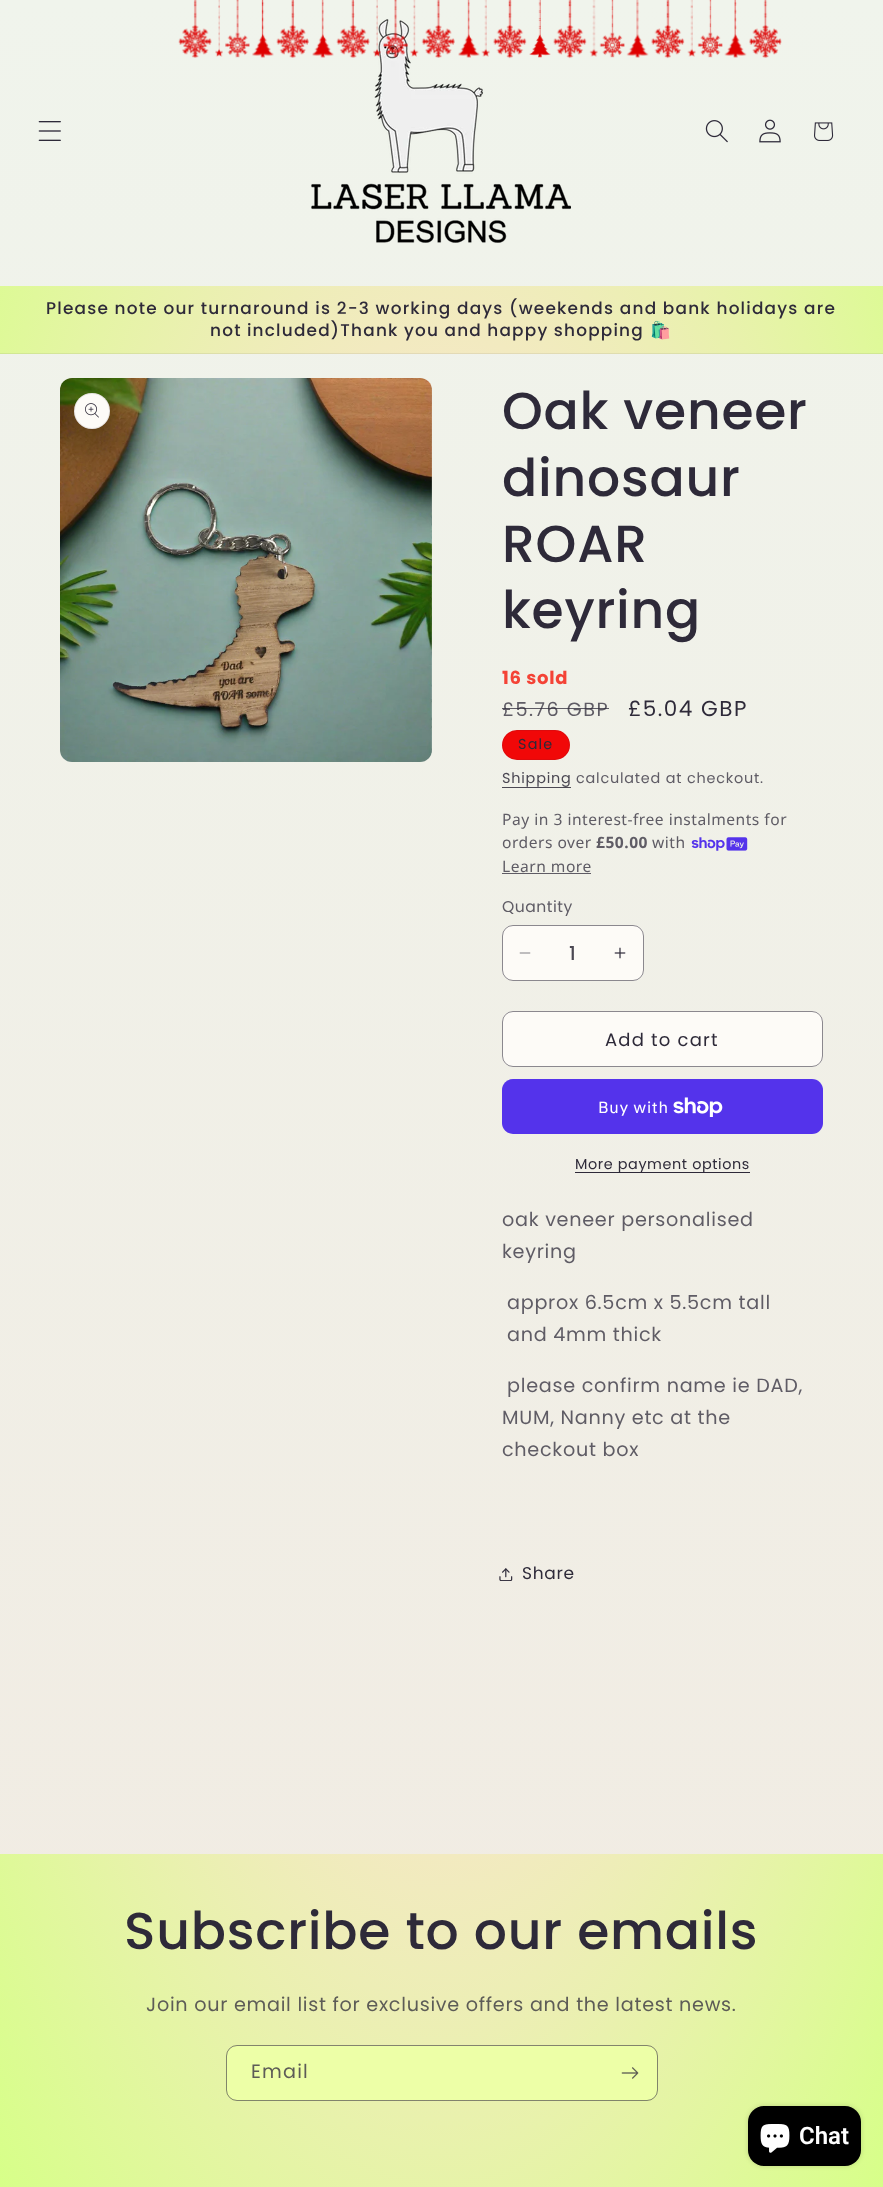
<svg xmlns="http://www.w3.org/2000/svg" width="883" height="2187">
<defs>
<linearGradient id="g1" gradientUnits="userSpaceOnUse" x1="441" y1="0" x2="442" y2="2187"><stop offset="0" stop-color="#f0f4ec"/><stop offset="1" stop-color="#f1ebe2"/></linearGradient>
<radialGradient id="g2" gradientUnits="userSpaceOnUse" cx="0" cy="0" r="1" gradientTransform="matrix(624 0 0 1546 442 1094)"><stop offset="0" stop-color="#ffe5e5"/><stop offset="0.25" stop-color="#ffe0da"/><stop offset="1" stop-color="#d7ff89"/></radialGradient>
<radialGradient id="g3" gradientUnits="userSpaceOnUse" cx="0" cy="0" r="1" gradientTransform="matrix(624 0 0 1546 442 1094)"><stop offset="0" stop-color="#eed6d7"/><stop offset="0.25" stop-color="#eed1cd"/><stop offset="1" stop-color="#c9ee83"/></radialGradient>
</defs>
<rect width="100%" height="100%" fill="#fff"/>
<rect width="883" height="1854" fill="url(#g1)"/>
<image x="178" y="0" width="34" height="58" href="media/1.png"/>
<image x="215" y="0" width="8" height="57" href="media/2.png"/>
<image x="225" y="0" width="25" height="58" href="media/3.png"/>
<image x="252" y="0" width="22" height="58" href="media/4.png"/>
<image x="276" y="0" width="33" height="58" href="media/5.png"/>
<image x="311" y="19" width="260" height="224" href="media/26.png"/>
<image x="312" y="0" width="22" height="58" href="media/6.png"/>
<image x="336" y="0" width="34" height="58" href="media/7.png"/>
<image x="373" y="0" width="8" height="57" href="media/8.png"/>
<image x="383" y="0" width="25" height="58" href="media/9.png"/>
<image x="410" y="0" width="9" height="57" href="media/10.png"/>
<image x="421" y="0" width="34" height="58" href="media/11.png"/>
<image x="458" y="0" width="22" height="58" href="media/12.png"/>
<image x="481" y="0" width="9" height="57" href="media/13.png"/>
<image x="493" y="0" width="34" height="59" href="media/14.png"/>
<image x="529" y="0" width="22" height="58" href="media/15.png"/>
<image x="553" y="0" width="34" height="59" href="media/16.png"/>
<image x="589" y="0" width="9" height="57" href="media/17.png"/>
<image x="599" y="0" width="26" height="58" href="media/18.png"/>
<image x="626" y="0" width="23" height="58" href="media/19.png"/>
<image x="651" y="0" width="34" height="59" href="media/20.png"/>
<image x="687" y="0" width="9" height="57" href="media/21.png"/>
<image x="697" y="0" width="26" height="58" href="media/22.png"/>
<image x="724" y="0" width="23" height="58" href="media/23.png"/>
<image x="749" y="0" width="33" height="58" href="media/24.png"/>
<image x="38" y="121" width="23" height="20" href="media/25.png"/>
<image x="705" y="120" width="23" height="23" href="media/27.png"/>
<image x="759" y="119" width="22" height="24" href="media/28.png"/>
<image x="814" y="122" width="20" height="19" href="media/29.png"/>
<rect y="286" width="883" height="67" fill="url(#g2)"/>
<rect y="353" width="883" height="1" fill="url(#g3)"/>
<text x="46" y="314" style="font-family:Poppins;font-size:16.9px;font-weight:500;letter-spacing:1.2px;fill:#2e2a39">Please note our turnaround is 2-3 working days (weekends and bank holidays are</text>
<text x="210" y="336" word-spacing="-0.25" style="font-family:Poppins;font-size:16.9px;font-weight:500;letter-spacing:1.2px;fill:#2e2a39">not included)Thank you and happy shopping</text>
<text x="650" y="336" style="font-family:Noto Color Emoji;font-size:16.9px;letter-spacing:1.2px;fill:#2e2a39">🛍️</text>
<image x="60" y="378" width="372" height="384" href="media/30.png"/>
<circle cx="92" cy="411" r="18" fill="#fdfbf7"/>
<circle cx="92" cy="411" r="17.5" fill="none" stroke="#2e2a391a"/>
<image x="85" y="403" width="14" height="15" href="media/31.png"/>
<text x="502" y="429" style="font-family:Poppins;font-size:52px;font-weight:500;letter-spacing:0.75px;fill:#2e2a39">Oak veneer</text>
<text x="502" y="496" style="font-family:Poppins;font-size:52px;font-weight:500;letter-spacing:0.75px;fill:#2e2a39">dinosaur</text>
<text x="502" y="562" style="font-family:Poppins;font-size:52px;font-weight:500;letter-spacing:0.75px;fill:#2e2a39">ROAR</text>
<text x="502" y="628" style="font-family:Poppins;font-size:52px;font-weight:500;letter-spacing:0.75px;fill:#2e2a39">keyring</text>
<text x="502" y="684" style="font-family:Poppins;font-size:18px;font-weight:bold;letter-spacing:0.72px;fill:#f44336">16 sold</text>
<text x="502" y="716" style="font-family:Poppins;font-size:19.2px;letter-spacing:1.5px;fill:#5f5c65">£5.76 GBP</text>
<rect x="502" y="708" width="107" height="1" fill="#2e2a39bf"/>
<text x="628" y="716" style="font-family:Poppins;font-size:21.5px;letter-spacing:1.5px;fill:#2e2a39">£5.04 GBP</text>
<rect x="502" y="730" width="68" height="30" rx="15" fill="#f10808"/>
<rect x="502.5" y="730.5" width="67" height="29" rx="14.5" fill="none" stroke="#2e2a391a"/>
<text x="518" y="749" style="font-family:Poppins;font-size:14.4px;letter-spacing:1.2px;fill:#2e2a39">Sale</text>
<text x="502" y="783" style="font-family:Poppins;font-size:14.4px;letter-spacing:0.8px;fill:#4b4853">Shipping</text>
<rect x="502" y="787" width="69" height="1" fill="#4b4853"/>
<text x="576" y="783" style="font-family:Poppins;font-size:14.4px;letter-spacing:0.8px;fill:#5f5c65">calculated at checkout.</text>
<text x="502" y="825" style="font-family:Noto Sans;font-size:15.6px;letter-spacing:0.5px;fill:#5f5c65">Pay in 3 interest-free instalments for</text>
<text x="502" y="848" style="font-family:Noto Sans;font-size:15.6px;letter-spacing:0.5px;fill:#5f5c65">orders over</text>
<text x="596" y="848" style="font-family:Noto Sans;font-size:15.6px;font-weight:bold;letter-spacing:0.5px;fill:#5f5c65">£50.00</text>
<text x="652" y="848" style="font-family:Noto Sans;font-size:15.6px;letter-spacing:0.5px;fill:#5f5c65">with</text>
<image x="691" y="837" width="57" height="14" href="media/32.png"/>
<text x="502" y="872" style="font-family:Noto Sans;font-size:15.6px;letter-spacing:0.5px;fill:#5f5c65">Learn more</text>
<rect x="502" y="873" width="89" height="1" fill="#5f5c65"/>
<text x="502" y="912" style="font-family:Poppins;font-size:15.6px;letter-spacing:0.5px;fill:#5f5c65">Quantity</text>
<rect x="502" y="925" width="142" height="56" rx="11" fill="#fdfbf7"/>
<image x="519" y="952" width="12" height="2" href="media/33.png"/>
<image x="614" y="947" width="12" height="12" href="media/34.png"/>
<rect x="502.5" y="925.5" width="141" height="55" rx="10.5" fill="none" stroke="#2e2a398c"/>
<text x="569" y="960" style="font-family:Poppins;font-size:19.2px;font-weight:500;fill:#4b4853">1</text>
<rect x="502" y="1011" width="321" height="56" rx="11" fill="#fdfbf7"/>
<rect x="502.5" y="1011.5" width="320" height="55" rx="10.5" fill="none" stroke="#fdfbf7"/>
<rect x="502.5" y="1011.5" width="320" height="55" rx="10.5" fill="none" stroke="#8b888e"/>
<text x="605" y="1046" style="font-family:Poppins;font-size:18px;letter-spacing:1.2px;fill:#2e2a39">Add to cart</text>
<rect x="502" y="1079" width="321" height="55" rx="11" fill="#5433eb"/>
<text x="598" y="1113" style="font-family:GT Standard;font-size:16px;letter-spacing:0.72px;fill:#fff">Buy with</text>
<image x="673" y="1097" width="50" height="20" href="media/35.png"/>
<rect x="575" y="1172" width="175" height="1" fill="#2e2a39"/>
<text x="575" y="1169" style="font-family:Poppins;font-size:14.4px;letter-spacing:0.6px;fill:#2e2a39">More payment options</text>
<text x="502" y="1226" style="font-family:Poppins;font-size:19.2px;letter-spacing:0.72px;fill:#5f5c65">oak veneer personalised</text>
<text x="502" y="1258" style="font-family:Poppins;font-size:19.2px;letter-spacing:0.72px;fill:#5f5c65">keyring</text>
<text x="507" y="1309" style="font-family:Poppins;font-size:19.2px;letter-spacing:0.72px;fill:#5f5c65">approx 6.5cm x 5.5cm tall</text>
<text x="507" y="1341" style="font-family:Poppins;font-size:19.2px;letter-spacing:0.72px;fill:#5f5c65">and 4mm thick</text>
<text x="507" y="1392" style="font-family:Poppins;font-size:19.2px;letter-spacing:0.72px;fill:#5f5c65">please confirm name ie DAD,</text>
<text x="502" y="1424" style="font-family:Poppins;font-size:19.2px;letter-spacing:0.72px;fill:#5f5c65">MUM, Nanny etc at the</text>
<text x="502" y="1456" style="font-family:Poppins;font-size:19.2px;letter-spacing:0.72px;fill:#5f5c65">checkout box</text>
<image x="499" y="1568" width="14" height="13" href="media/36.png"/>
<text x="522" y="1579" style="font-family:Poppins;font-size:17px;letter-spacing:0.72px;fill:#2e2a39">Share</text>
<rect y="1854" width="883" height="255" fill="url(#g2)"/>
<text x="124" y="1949" style="font-family:Poppins;font-size:52px;font-weight:500;letter-spacing:0.75px;fill:#2e2a39">Subscribe to our emails</text>
<text x="146" y="2011" style="font-family:Poppins;font-size:19.2px;letter-spacing:0.72px;fill:#5d5c57">Join our email list for exclusive offers and the latest news.</text>
<rect x="227" y="2046" width="430" height="54" rx="10" fill="#edffa7"/>
<rect x="226.5" y="2045.5" width="431" height="55" rx="10.5" fill="none" stroke="#2e2a398c"/>
<text x="251" y="2078" style="font-family:Poppins;font-size:19.2px;letter-spacing:1.2px;fill:#5d5c57">Email</text>
<image x="621" y="2067" width="18" height="12" href="media/37.png"/>
<rect y="2109" width="883" height="78" fill="url(#g2)"/>
<rect x="748" y="2106" width="113" height="60" rx="16" fill="#00000026" filter="blur(2.5px)"/>
<rect x="748" y="2106" width="113" height="60" rx="16" fill="#000"/>
<image x="760" y="2124" width="30" height="29" href="media/38.png"/>
<text x="799" y="2144" style="font-family:Roboto;font-size:24px;font-weight:600;fill:#fff">Chat</text>
</svg>
